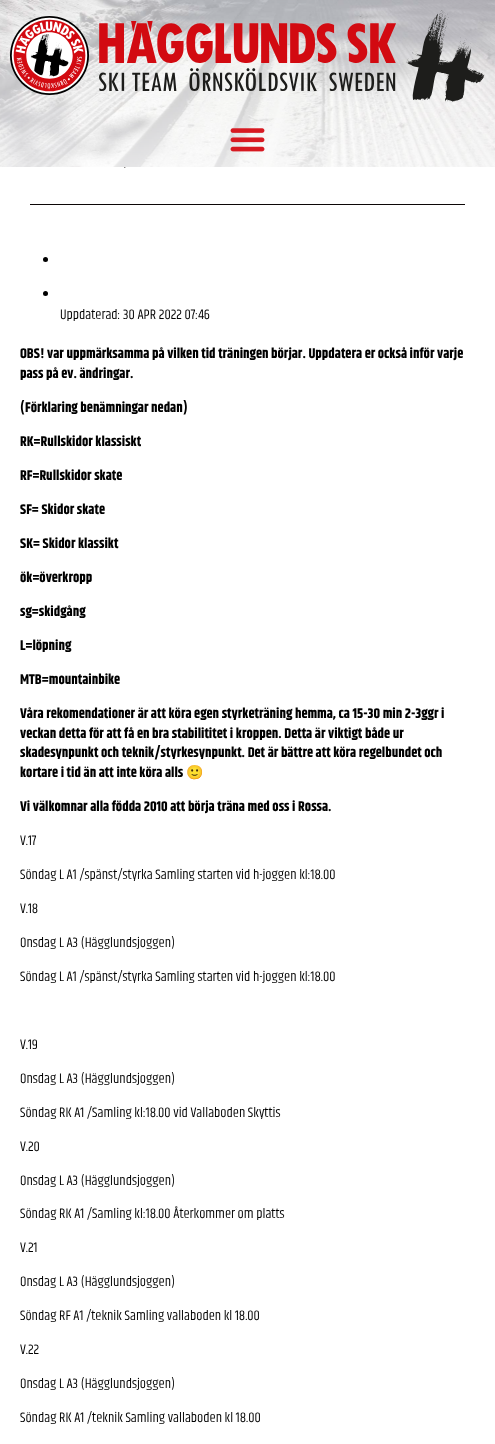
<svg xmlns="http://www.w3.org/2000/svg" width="495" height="1444">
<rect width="100%" height="100%" fill="#fff"/>
<image x="0" y="0" width="495" height="167" href="media/1.png"/>
<image x="10" y="16" width="79" height="79" href="media/2.png"/>
<image x="99" y="21" width="297" height="70" href="media/3.png"/>
<image x="406" y="10" width="79" height="92" href="media/4.png"/>
<image x="230" y="128" width="35" height="24" href="media/5.png"/>
<rect x="30" y="204" width="435" height="1" fill="#0c0707"/>
<text x="124" y="168" style="font-family:Khand;font-size:11px;fill:#0c0707">.</text>
<circle cx="45.5" cy="259.5" r="2.5" fill="#000"/>
<circle cx="45.5" cy="293.5" r="2.5" fill="#000"/>
<text x="60" y="319" style="font-family:Khand;font-size:14px;fill:#000">Uppdaterad: 30 APR 2022 07:46</text>
<text x="20" y="358" style="font-family:Khand;font-size:14px;font-weight:bold;fill:#000">OBS! var uppmärksamma på vilken tid träningen börjar. Uppdatera er också inför varje</text>
<text x="20" y="378" style="font-family:Khand;font-size:14px;font-weight:bold;fill:#000">pass på ev. ändringar.</text>
<text x="20" y="412" style="font-family:Khand;font-size:14px;font-weight:bold;fill:#000">(Förklaring benämningar nedan)</text>
<text x="20" y="446" style="font-family:Khand;font-size:14px;font-weight:bold;fill:#000">RK=Rullskidor klassiskt</text>
<text x="20" y="480" style="font-family:Khand;font-size:14px;font-weight:bold;fill:#000">RF=Rullskidor skate</text>
<text x="20" y="514" style="font-family:Khand;font-size:14px;font-weight:bold;fill:#000">SF= Skidor skate</text>
<text x="20" y="548" style="font-family:Khand;font-size:14px;font-weight:bold;fill:#000">SK= Skidor klassikt</text>
<text x="20" y="582" style="font-family:Khand;font-size:14px;font-weight:bold;fill:#000">ök=överkropp</text>
<text x="20" y="616" style="font-family:Khand;font-size:14px;font-weight:bold;fill:#000">sg=skidgång</text>
<text x="20" y="650" style="font-family:Khand;font-size:14px;font-weight:bold;fill:#000">L=löpning</text>
<text x="20" y="684" style="font-family:Khand;font-size:14px;font-weight:bold;fill:#000">MTB=mountainbike</text>
<text x="20" y="718" style="font-family:Khand;font-size:14px;font-weight:bold;fill:#000">Våra rekomendationer är att köra egen styrketräning hemma, ca 15-30 min 2-3ggr i</text>
<text x="20" y="738" style="font-family:Khand;font-size:14px;font-weight:bold;fill:#000">veckan detta för att få en bra stabilititet i kroppen. Detta är viktigt både ur</text>
<text x="20" y="757" style="font-family:Khand;font-size:14px;font-weight:bold;fill:#000">skadesynpunkt och teknik/styrkesynpunkt. Det är bättre att köra regelbundet och</text>
<text x="20" y="777" style="font-family:Khand;font-size:14px;font-weight:bold;fill:#000">kortare i tid än att inte köra alls</text>
<text x="186" y="777" style="font-family:Noto Color Emoji;font-size:14px;font-weight:bold;fill:#000">🙂</text>
<text x="20" y="811" style="font-family:Khand;font-size:14px;font-weight:bold;fill:#000">Vi välkomnar alla födda 2010 att börja träna med oss i Rossa.</text>
<text x="20" y="845" style="font-family:Khand;font-size:14px;fill:#000">V.17</text>
<text x="20" y="879" style="font-family:Khand;font-size:14px;fill:#000">Söndag L A1 /spänst/styrka Samling starten vid h-joggen kl:18.00</text>
<text x="20" y="913" style="font-family:Khand;font-size:14px;fill:#000">V.18</text>
<text x="20" y="947" style="font-family:Khand;font-size:14px;fill:#000">Onsdag L A3 (Hägglundsjoggen)</text>
<text x="20" y="981" style="font-family:Khand;font-size:14px;fill:#000">Söndag L A1 /spänst/styrka Samling starten vid h-joggen kl:18.00</text>
<text x="20" y="1049" style="font-family:Khand;font-size:14px;fill:#000">V.19</text>
<text x="20" y="1083" style="font-family:Khand;font-size:14px;fill:#000">Onsdag L A3 (Hägglundsjoggen)</text>
<text x="20" y="1117" style="font-family:Khand;font-size:14px;fill:#000">Söndag RK A1 /Samling kl:18.00 vid Vallaboden Skyttis</text>
<text x="20" y="1151" style="font-family:Khand;font-size:14px;fill:#000">V.20</text>
<text x="20" y="1185" style="font-family:Khand;font-size:14px;fill:#000">Onsdag L A3 (Hägglundsjoggen)</text>
<text x="20" y="1218" style="font-family:Khand;font-size:14px;fill:#000">Söndag RK A1 /Samling kl:18.00 Återkommer om platts</text>
<text x="20" y="1252" style="font-family:Khand;font-size:14px;fill:#000">V.21</text>
<text x="20" y="1286" style="font-family:Khand;font-size:14px;fill:#000">Onsdag L A3 (Hägglundsjoggen)</text>
<text x="20" y="1320" style="font-family:Khand;font-size:14px;fill:#000">Söndag RF A1 /teknik Samling vallaboden kl 18.00</text>
<text x="20" y="1354" style="font-family:Khand;font-size:14px;fill:#000">V.22</text>
<text x="20" y="1388" style="font-family:Khand;font-size:14px;fill:#000">Onsdag L A3 (Hägglundsjoggen)</text>
<text x="20" y="1422" style="font-family:Khand;font-size:14px;fill:#000">Söndag RK A1 /teknik Samling vallaboden kl 18.00</text>
</svg>
